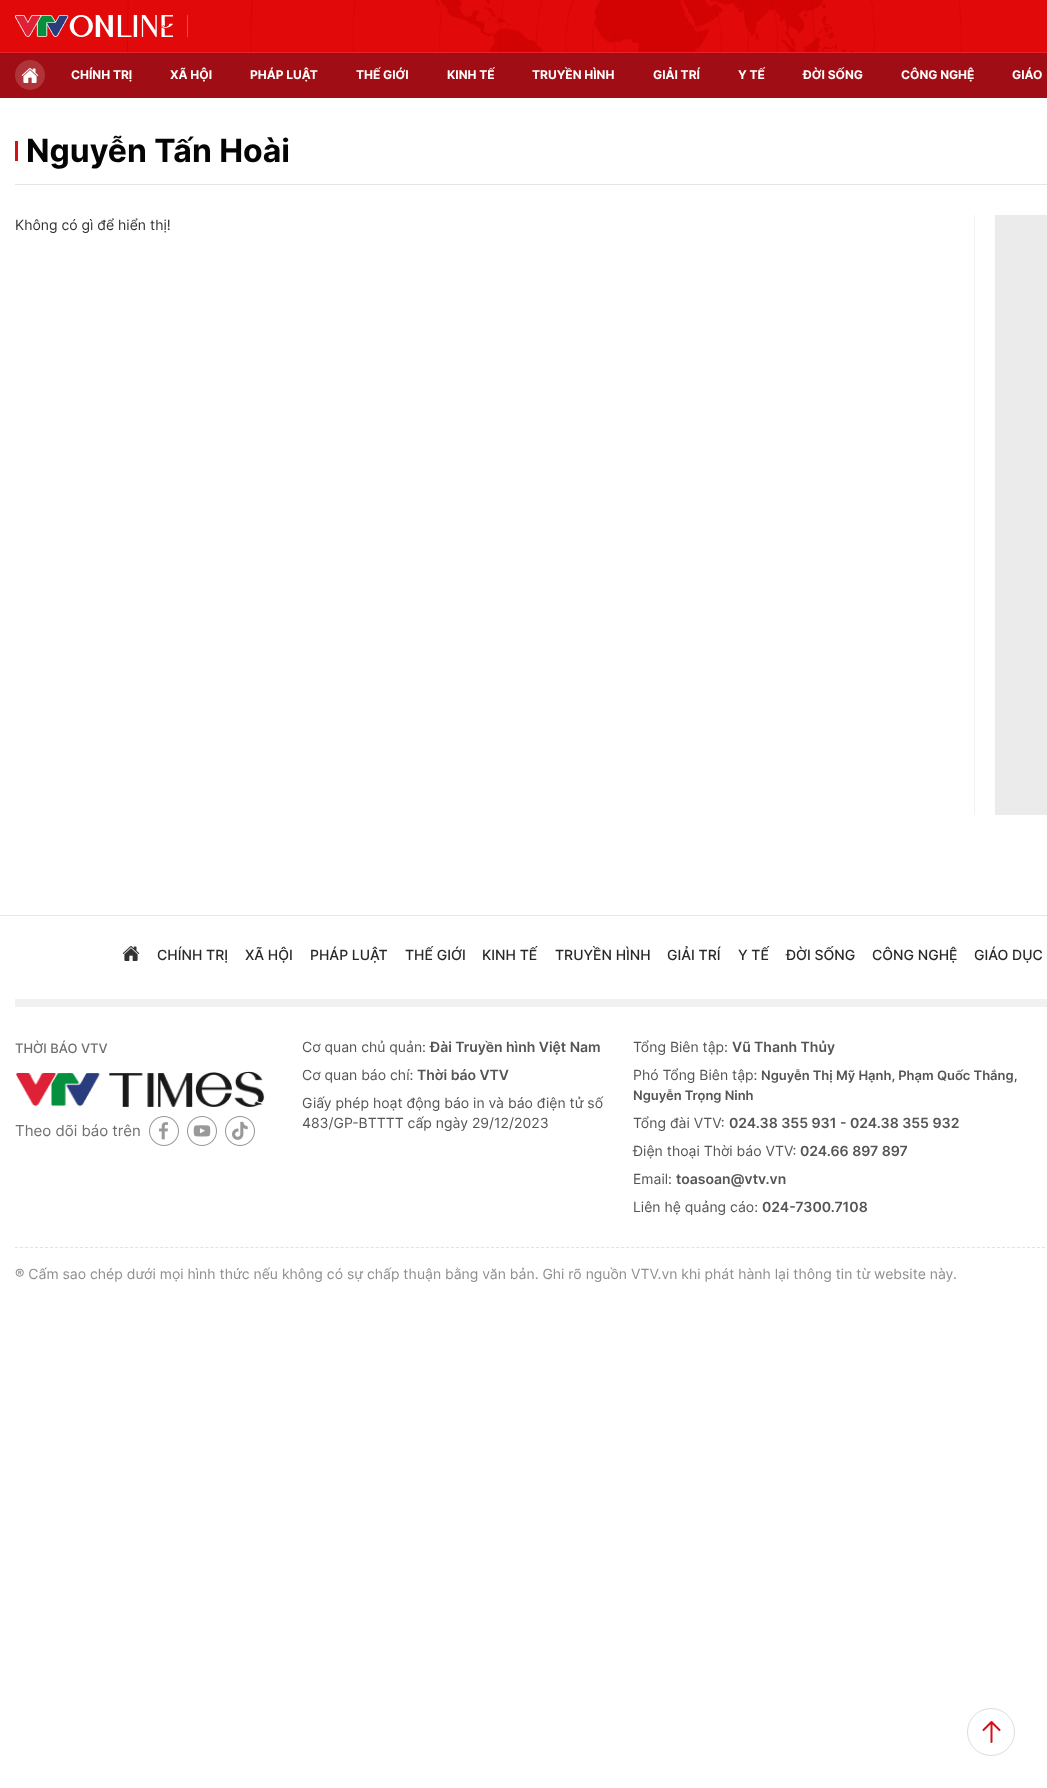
<svg xmlns="http://www.w3.org/2000/svg" width="1047" height="1788">
<rect width="100%" height="100%" fill="#fff"/>
<image x="0" y="0" width="1047" height="52" href="media/1.png"/>
<image x="15" y="15" width="158" height="22" href="media/2.png"/>
<rect x="187" y="15" width="1" height="22" fill="#f0464f"/>
<rect y="53" width="1047" height="45" fill="#a00d14"/>
<rect y="52" width="1047" height="1" fill="#ed212b"/>
<circle cx="30" cy="75" r="15" fill="#af343a"/>
<image x="21" y="68" width="18" height="15" href="media/3.png"/>
<text x="71" y="79" style="font-family:Inter;font-size:12px;font-weight:bold;fill:#fff">CHÍNH TRỊ</text>
<text x="170" y="79" style="font-family:Inter;font-size:12px;font-weight:bold;fill:#fff">XÃ HỘI</text>
<text x="250" y="79" style="font-family:Inter;font-size:12px;font-weight:bold;fill:#fff">PHÁP LUẬT</text>
<text x="356" y="79" style="font-family:Inter;font-size:12px;font-weight:bold;fill:#fff">THẾ GIỚI</text>
<text x="447" y="79" style="font-family:Inter;font-size:12px;font-weight:bold;fill:#fff">KINH TẾ</text>
<text x="532" y="79" style="font-family:Inter;font-size:12px;font-weight:bold;fill:#fff">TRUYỀN HÌNH</text>
<text x="653" y="79" style="font-family:Inter;font-size:12px;font-weight:bold;fill:#fff">GIẢI TRÍ</text>
<text x="738" y="79" style="font-family:Inter;font-size:12px;font-weight:bold;fill:#fff">Y TẾ</text>
<text x="803" y="79" style="font-family:Inter;font-size:12px;font-weight:bold;fill:#fff">ĐỜI SỐNG</text>
<text x="901" y="79" style="font-family:Inter;font-size:12px;font-weight:bold;fill:#fff">CÔNG NGHỆ</text>
<text x="1012" y="79" style="font-family:Inter;font-size:12px;font-weight:bold;fill:#fff">GIÁO</text>
<rect x="15" y="141" width="3" height="20" fill="#d4111b"/>
<text x="26" y="162" style="font-family:Inter;font-size:32px;font-weight:bold;fill:#040404">Nguyễn Tấn Hoài</text>
<rect x="15" y="184" width="1032" height="1" fill="#e5e5e5"/>
<text x="15" y="230" style="font-family:Inter;font-size:14px;fill:#333">Không có gì để hiển thị!</text>
<rect x="974" y="215" width="1" height="600" fill="#f1f1f1"/>
<rect x="995" y="215" width="52" height="600" fill="#ebebeb"/>
<rect y="915" width="1047" height="1" fill="#fcdddf"/>
<rect x="15" y="999" width="1032" height="8" fill="#f1f1f1"/>
<image x="122" y="946" width="18" height="15" href="media/4.png"/>
<text x="157" y="960" style="font-family:Inter;font-size:14px;font-weight:500;fill:#292929">CHÍNH TRỊ</text>
<text x="245" y="960" style="font-family:Inter;font-size:14px;font-weight:500;fill:#292929">XÃ HỘI</text>
<text x="310" y="960" style="font-family:Inter;font-size:14px;font-weight:500;fill:#292929">PHÁP LUẬT</text>
<text x="405" y="960" style="font-family:Inter;font-size:14px;font-weight:500;fill:#292929">THẾ GIỚI</text>
<text x="482" y="960" style="font-family:Inter;font-size:14px;font-weight:500;fill:#292929">KINH TẾ</text>
<text x="555" y="960" style="font-family:Inter;font-size:14px;font-weight:500;fill:#292929">TRUYỀN HÌNH</text>
<text x="667" y="960" style="font-family:Inter;font-size:14px;font-weight:500;fill:#292929">GIẢI TRÍ</text>
<text x="738" y="960" style="font-family:Inter;font-size:14px;font-weight:500;fill:#292929">Y TẾ</text>
<text x="786" y="960" style="font-family:Inter;font-size:14px;font-weight:500;fill:#292929">ĐỜI SỐNG</text>
<text x="872" y="960" style="font-family:Inter;font-size:14px;font-weight:500;fill:#292929">CÔNG NGHỆ</text>
<text x="974" y="960" style="font-family:Inter;font-size:14px;font-weight:500;fill:#292929">GIÁO DỤC</text>
<path d="M15 1247.5h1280" fill="none" stroke="#e2e2e2" stroke-dasharray="3 2.01"/>
<text x="15" y="1053" style="font-family:Inter;font-size:13px;font-weight:500;fill:#707070">THỜI BÁO VTV</text>
<image x="16" y="1071" width="249" height="36" href="media/5.png"/>
<text x="15" y="1136" style="font-family:Inter;font-size:15px;fill:#707070">Theo dõi báo trên</text>
<image x="149" y="1116" width="30" height="30" href="media/6.png"/>
<image x="187" y="1116" width="30" height="30" href="media/7.png"/>
<image x="225" y="1116" width="30" height="30" href="media/8.png"/>
<text x="302" y="1052" style="font-family:Inter;font-size:14px;fill:#555">Cơ quan chủ quản:</text>
<text x="430" y="1052" style="font-family:Inter;font-size:14px;font-weight:600;fill:#555">Đài Truyền hình Việt Nam</text>
<text x="302" y="1080" style="font-family:Inter;font-size:14px;fill:#555">Cơ quan báo chí:</text>
<text x="417" y="1080" style="font-family:Inter;font-size:14px;font-weight:600;fill:#555">Thời báo VTV</text>
<text x="302" y="1108" style="font-family:Inter;font-size:14px;fill:#555">Giấy phép hoạt động báo in và báo điện tử số</text>
<text x="302" y="1128" style="font-family:Inter;font-size:14px;fill:#555">483/GP-BTTTT cấp ngày 29/12/2023</text>
<text x="633" y="1052" style="font-family:Inter;font-size:14px;fill:#555">Tổng Biên tập:</text>
<text x="732" y="1052" style="font-family:Inter;font-size:14px;font-weight:600;fill:#555">Vũ Thanh Thủy</text>
<text x="633" y="1080" style="font-family:Inter;font-size:14px;fill:#555">Phó Tổng Biên tập:</text>
<text x="761" y="1080" style="font-family:Inter;font-size:13px;font-weight:600;fill:#555">Nguyễn Thị Mỹ Hạnh, Phạm Quốc Thắng,</text>
<text x="633" y="1100" style="font-family:Inter;font-size:13px;font-weight:600;fill:#555">Nguyễn Trọng Ninh</text>
<text x="633" y="1128" style="font-family:Inter;font-size:14px;fill:#555">Tổng đài VTV:</text>
<text x="729" y="1128" style="font-family:Inter;font-size:14px;font-weight:600;fill:#555">024.38 355 931 - 024.38 355 932</text>
<text x="633" y="1156" style="font-family:Inter;font-size:14px;fill:#555">Ðiện thoại Thời báo VTV:</text>
<text x="800" y="1156" style="font-family:Inter;font-size:14px;font-weight:600;fill:#555">024.66 897 897</text>
<text x="633" y="1184" style="font-family:Inter;font-size:14px;fill:#555">Email:</text>
<text x="676" y="1184" style="font-family:Inter;font-size:14px;font-weight:600;fill:#555">toasoan@vtv.vn</text>
<text x="633" y="1212" style="font-family:Inter;font-size:14px;fill:#555">Liên hệ quảng cáo:</text>
<text x="762" y="1212" style="font-family:Inter;font-size:14px;font-weight:600;fill:#555">024-7300.7108</text>
<text x="15" y="1279" style="font-family:Inter;font-size:14px;fill:#8f8f8f">® Cấm sao chép dưới mọi hình thức nếu không có sự chấp thuận bằng văn bản. Ghi rõ nguồn VTV.vn khi phát hành lại thông tin từ website này.</text>
<circle cx="991" cy="1732" r="23.5" fill="none" stroke="#ddd"/>
<path d="M983.5 1730l8-8m0 0l8 8m-8-8v20" fill="none" stroke="#d4111b" stroke-width="2" stroke-linecap="round" stroke-linejoin="round"/>
</svg>
